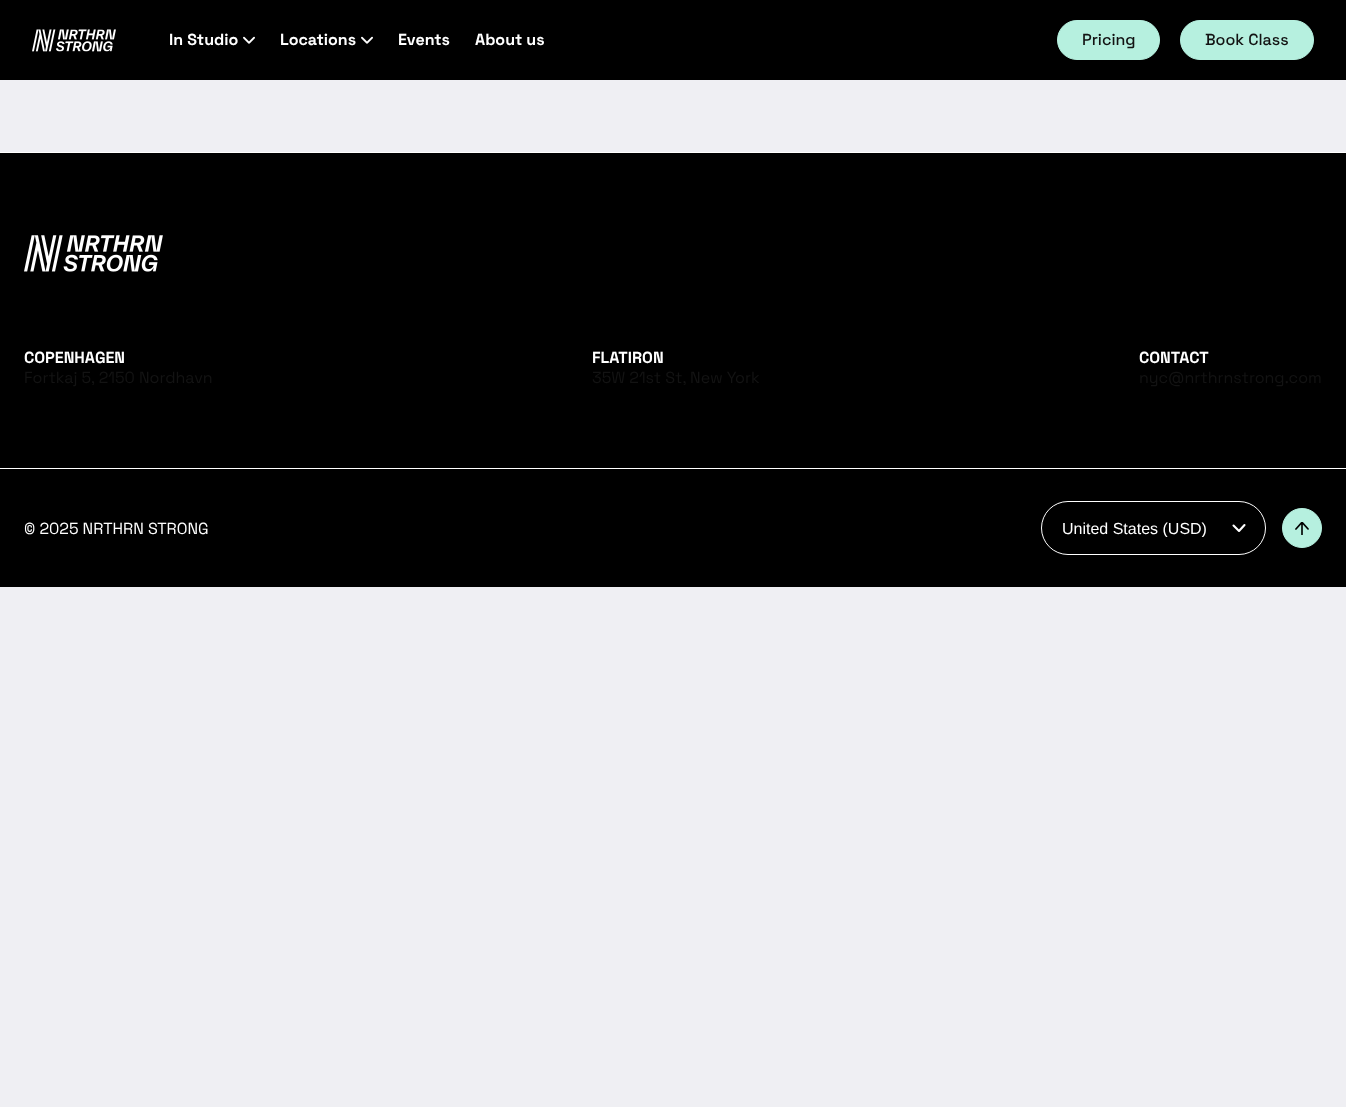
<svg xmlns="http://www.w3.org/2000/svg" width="1346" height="1107">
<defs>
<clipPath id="clip1"><rect x="1062" y="520" width="183" height="17"/></clipPath>
</defs>
<rect width="100%" height="100%" fill="#efeff3"/>
<rect width="1346" height="80" fill="#000"/>
<image x="32" y="29" width="84" height="23" href="media/1.png"/>
<text x="169" y="45" style="font-family:Space Grotesk;font-size:16px;font-weight:bold;fill:#fff">In Studio</text>
<image x="243" y="36" width="12" height="8" href="media/2.png"/>
<text x="280" y="45" style="font-family:Space Grotesk;font-size:16px;font-weight:bold;fill:#fff">Locations</text>
<image x="361" y="36" width="12" height="8" href="media/2.png"/>
<text x="398" y="45" style="font-family:Space Grotesk;font-size:16px;font-weight:bold;fill:#fff">Events</text>
<text x="475" y="45" style="font-family:Space Grotesk;font-size:16px;font-weight:bold;fill:#fff">About us</text>
<rect x="1057.5" y="20.5" width="102" height="39" rx="19.5" fill="#b6f0df" stroke="#b6f0df"/>
<text x="1082" y="45" style="font-family:Space Grotesk;font-size:16px;font-weight:500;fill:#131313">Pricing</text>
<rect x="1180.5" y="20.5" width="133" height="39" rx="19.5" fill="#b6f0df" stroke="#b6f0df"/>
<text x="1205" y="45" style="font-family:Space Grotesk;font-size:16px;font-weight:500;fill:#131313">Book Class</text>
<rect y="153" width="1346" height="315" fill="#000"/>
<rect y="152" width="1346" height="1" fill="#fff"/>
<image x="24" y="235" width="139" height="37" href="media/3.png"/>
<text x="24" y="363" style="font-family:Space Grotesk;font-size:16px;font-weight:bold;fill:#fff">COPENHAGEN</text>
<text x="24" y="383" style="font-family:Space Grotesk;font-size:16px;font-weight:300;fill:#131313">Fortkaj 5, 2150 Nordhavn</text>
<text x="592" y="363" style="font-family:Space Grotesk;font-size:16px;font-weight:bold;fill:#fff">FLATIRON</text>
<text x="592" y="383" style="font-family:Space Grotesk;font-size:16px;font-weight:300;fill:#131313">35W 21st St, New York</text>
<text x="1139" y="363" style="font-family:Space Grotesk;font-size:16px;font-weight:bold;fill:#fff">CONTACT</text>
<text x="1139" y="383" style="font-family:Space Grotesk;font-size:16px;font-weight:300;fill:#131313">nyc@nrthrnstrong.com</text>
<rect y="469" width="1346" height="118" fill="#000"/>
<rect y="468" width="1346" height="1" fill="#fff"/>
<text x="24" y="534" style="font-family:Space Grotesk;font-size:16px;font-weight:300;fill:#fff">© 2025 NRTHRN STRONG</text>
<rect x="1041.5" y="501.5" width="224" height="53" rx="26.5" fill="none" stroke="#fff"/>
<g clip-path="url(#clip1)">
<text x="1062" y="534" style="font-family:Liberation Sans;font-size:16px;fill:#fff">United States (USD)</text>
</g>
<path d="M1244.5 525l-5.5 6l-5.5-5.5" fill="none" stroke="#fff" stroke-width="2.1" stroke-linecap="round" stroke-linejoin="round"/>
<circle cx="1302" cy="528" r="19.5" fill="#b6f0df" stroke="#b6f0df"/>
<image x="1295" y="522" width="14" height="13" href="media/4.png"/>
</svg>
